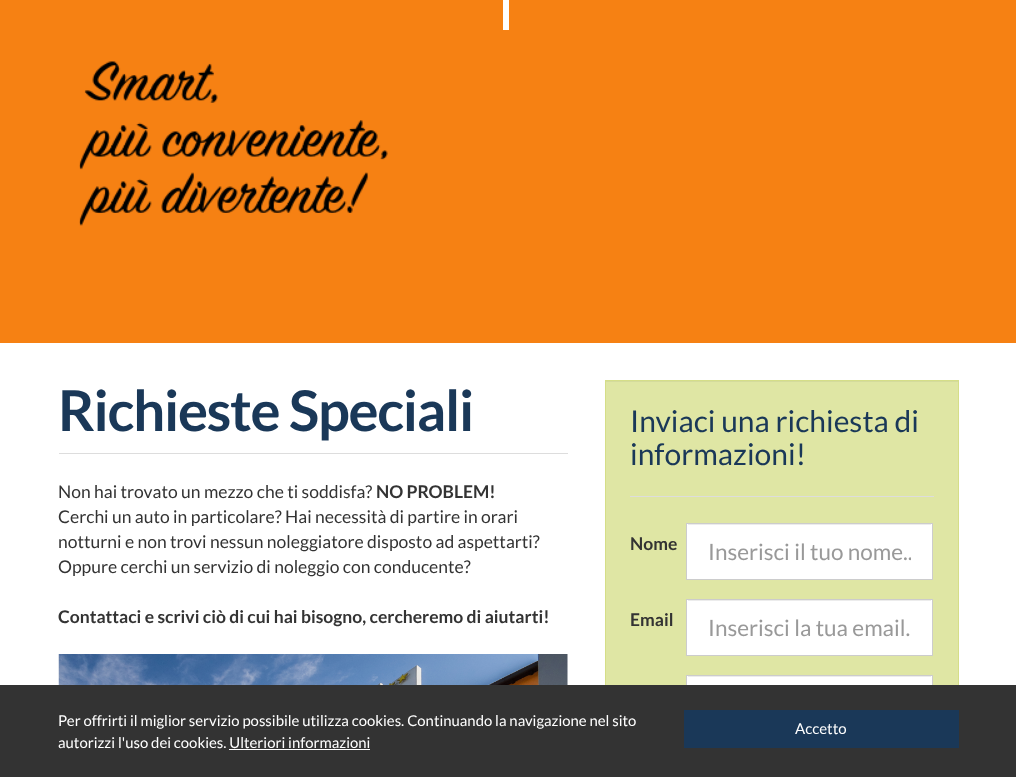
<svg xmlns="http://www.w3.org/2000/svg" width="1016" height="777">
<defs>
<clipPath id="clip1"><rect x="708" y="538" width="203" height="27"/></clipPath>
</defs>
<rect width="100%" height="100%" fill="#fff"/>
<rect width="1016" height="343" fill="#f68113"/>
<rect x="503" width="6" height="30" fill="#fff"/>
<image x="79" y="61" width="309" height="165" href="media/1.png"/>
<rect x="59" y="453" width="509" height="1" fill="#ddd"/>
<text x="58" y="431" style="font-family:Lato;font-size:56.25px;font-weight:bold;letter-spacing:-1.25px;fill:#1a3858">Richieste Speciali</text>
<text x="58" y="498" style="font-family:Lato;font-size:17.5px;fill:#333">Non hai trovato un mezzo che ti soddisfa?</text>
<text x="376" y="498" style="font-family:Lato;font-size:17.5px;font-weight:bold;fill:#333">NO PROBLEM!</text>
<text x="58" y="523" style="font-family:Lato;font-size:17.5px;fill:#333">Cerchi un auto in particolare? Hai necessità di partire in orari</text>
<text x="58" y="548" style="font-family:Lato;font-size:17.5px;fill:#333">notturni e non trovi nessun noleggiatore disposto ad aspettarti?</text>
<text x="58" y="573" style="font-family:Lato;font-size:17.5px;fill:#333">Oppure cerchi un servizio di noleggio con conducente?</text>
<text x="58" y="623" style="font-family:Lato;font-size:17.5px;font-weight:bold;fill:#333">Contattaci e scrivi ciò di cui hai bisogno, cercheremo di aiutarti!</text>
<image x="58" y="654" width="510" height="31" href="media/2.png"/>
<rect x="606" y="382" width="352" height="303" fill="#dfe6a4"/>
<rect x="606" y="381" width="352" height="1" fill="#d4db9c"/>
<rect x="605.5" y="380.5" width="353" height="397" fill="none" stroke="#d5de88"/>
<text x="630" y="432" style="font-family:Lato;font-size:30px;fill:#1a3858">Inviaci una richiesta di</text>
<text x="630" y="465" style="font-family:Lato;font-size:30px;fill:#1a3858">informazioni!</text>
<rect x="630" y="496" width="304" height="1" fill="#ddd"/>
<text x="630" y="550" style="font-family:Lato;font-size:17.5px;font-weight:bold;fill:#333">Nome</text>
<rect x="687" y="524" width="245" height="55" fill="#fff"/>
<rect x="688" y="524" width="243" height="1" fill="#ececec"/>
<rect x="686.5" y="523.5" width="246" height="56" fill="none" stroke="#ccc"/>
<g clip-path="url(#clip1)">
<text x="708" y="560" style="font-family:Lato;font-size:22.5px;fill:#999">Inserisci il tuo nome..</text>
</g>
<text x="630" y="626" style="font-family:Lato;font-size:17.5px;font-weight:bold;fill:#333">Email</text>
<rect x="687" y="600" width="245" height="55" fill="#fff"/>
<rect x="688" y="600" width="243" height="1" fill="#ececec"/>
<rect x="686.5" y="599.5" width="246" height="56" fill="none" stroke="#ccc"/>
<text x="708" y="636" style="font-family:Lato;font-size:22.5px;fill:#999">Inserisci la tua email.</text>
<rect x="687" y="676" width="245" height="9" fill="#fff"/>
<rect x="688" y="676" width="243" height="1" fill="#ececec"/>
<rect x="686.5" y="675.5" width="246" height="57" fill="none" stroke="#ccc"/>
<rect y="685" width="1016" height="92" fill="#333"/>
<text x="58" y="726" style="font-family:Lato;font-size:14.9px;fill:#fff">Per offrirti il miglior servizio possibile utilizza cookies. Continuando la navigazione nel sito</text>
<text x="58" y="748" style="font-family:Lato;font-size:14.9px;fill:#fff">autorizzi l'uso dei cookies. Ulteriori informazioni</text>
<rect x="229" y="749" width="141" height="1" fill="#fff"/>
<rect x="684" y="710" width="275" height="38" fill="#1a3858"/>
<text x="795" y="734" style="font-family:Lato;font-size:15px;fill:#fff">Accetto</text>
</svg>
